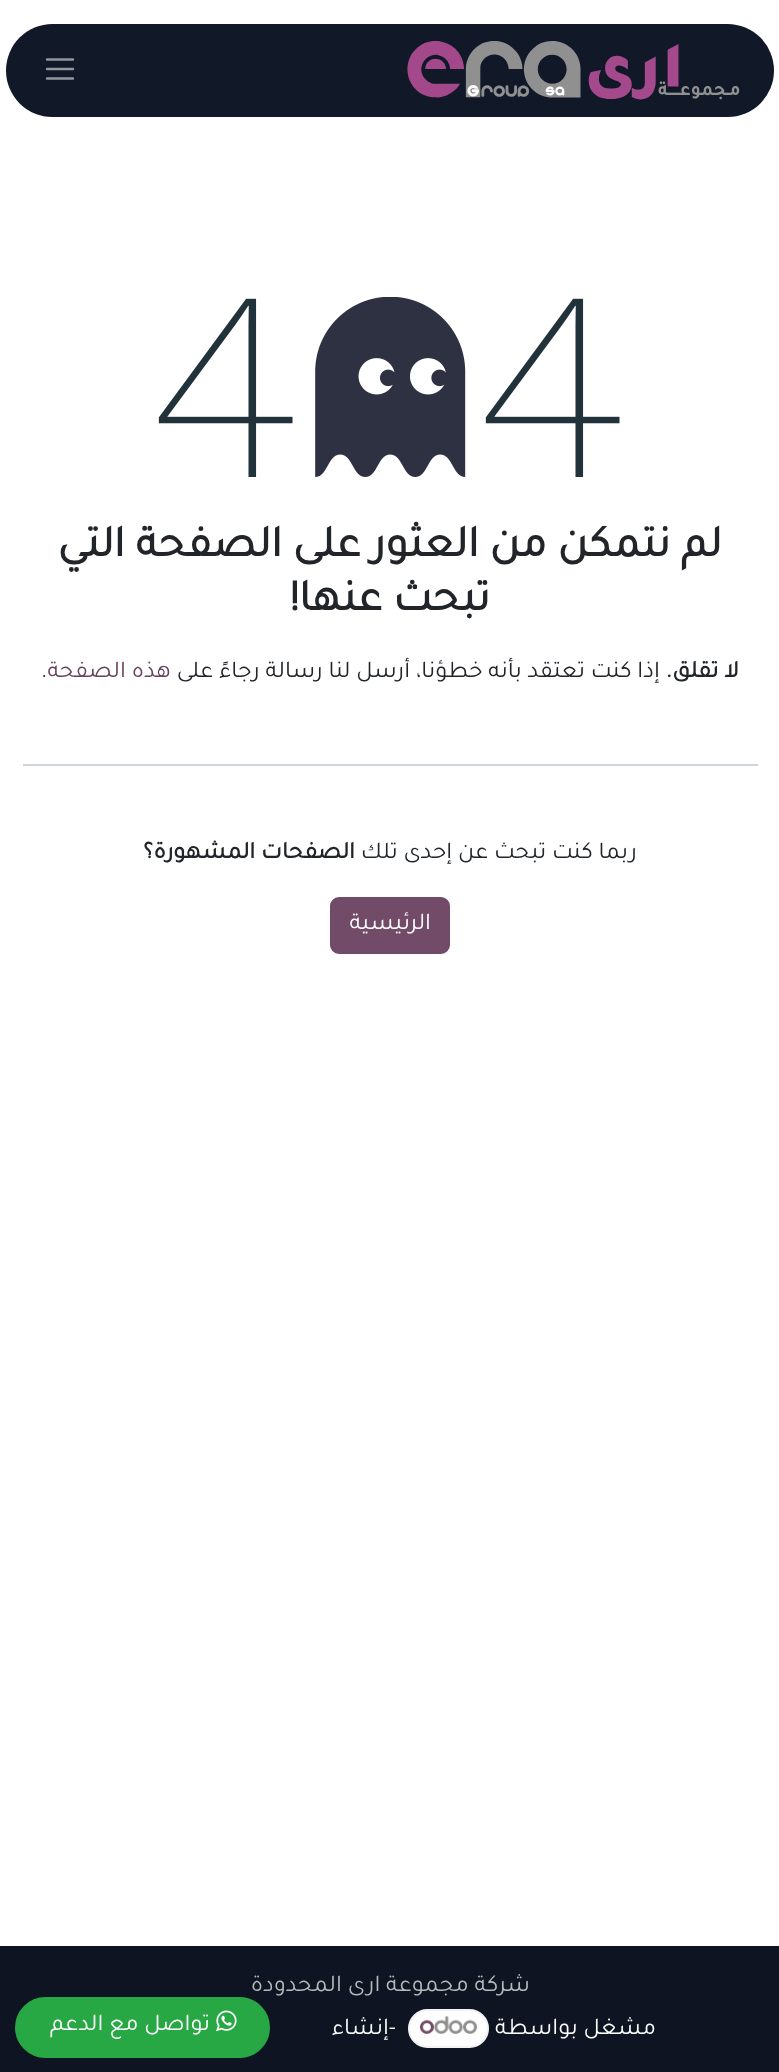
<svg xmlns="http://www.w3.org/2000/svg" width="779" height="2072">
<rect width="100%" height="100%" fill="#fff"/>
<rect x="6" y="24" width="768" height="93" rx="46.5" fill="#111827"/>
<image x="407" y="41" width="333" height="59" href="media/1.png"/>
<path d="M47 59.5h26m-26 9.5h26m-26 9.5h26" fill="none" stroke="#94979e" stroke-width="2.4" stroke-linecap="round"/>
<image x="158" y="297" width="462" height="180" href="media/2.png"/>
<text x="722" y="556" style="font-family:Tajawal;font-size:44.75px;font-weight:bold;direction:rtl;fill:#212529">لم نتمكن من العثور على الصفحة التي</text>
<text x="490" y="610" style="font-family:Tajawal;font-size:44.75px;font-weight:bold;direction:rtl;fill:#212529">تبحث عنها!</text>
<text x="739" y="677" style="font-family:Tajawal;font-size:24px;font-weight:bold;direction:rtl;fill:#212529">لا تقلق.</text>
<text x="660" y="677" style="font-family:Tajawal;font-size:24px;direction:rtl;fill:#212529">إذا كنت تعتقد بأنه خطؤنا، أرسل لنا رسالة رجاءً على</text>
<text x="171" y="677" style="font-family:Tajawal;font-size:24px;direction:rtl;fill:#65435c">هذه الصفحة</text>
<text x="41" y="677" style="font-family:Tajawal;font-size:24px;fill:#212529">.</text>
<rect x="23" y="764" width="735" height="2" fill="#ced4da"/>
<text x="637" y="858" style="font-family:Tajawal;font-size:24px;direction:rtl;fill:#212529">ربما كنت تبحث عن إحدى تلك</text>
<text x="355" y="858" style="font-family:Tajawal;font-size:24px;font-weight:bold;direction:rtl;fill:#212529">الصفحات المشهورة؟</text>
<rect x="331" y="898" width="118" height="55" rx="8" fill="#714b67" stroke="#714b67" stroke-width="2"/>
<text x="431" y="929" style="font-family:Tajawal;font-size:24px;direction:rtl;fill:#fff">الرئيسية</text>
<rect y="1946" width="779" height="126" fill="#0e1421"/>
<text x="530" y="1991" style="font-family:Tajawal;font-size:24px;direction:rtl;fill:#b7b9bc">شركة مجموعة ارى المحدودة</text>
<text x="656" y="2034" style="font-family:Tajawal;font-size:24px;direction:rtl;fill:#fff">مشغل بواسطة</text>
<rect x="409" y="2010" width="79" height="37" rx="18.5" fill="#fefefe" stroke="#f3f2f2" stroke-width="2"/>
<image x="420" y="2016" width="57" height="18" href="media/3.png"/>
<text x="389" y="2034" style="font-family:Tajawal;font-size:24px;fill:#fff">-</text>
<text x="389" y="2034" style="font-family:Tajawal;font-size:24px;direction:rtl;fill:#fff">إنشاء</text>
<rect x="16" y="1998" width="253" height="59" rx="29.5" fill="#28a745" stroke="#28a745" stroke-width="2"/>
<image x="216" y="2010" width="21" height="22" href="media/4.png"/>
<text x="210" y="2030" style="font-family:Tajawal;font-size:24px;direction:rtl;fill:#fff">تواصل مع الدعم</text>
</svg>
